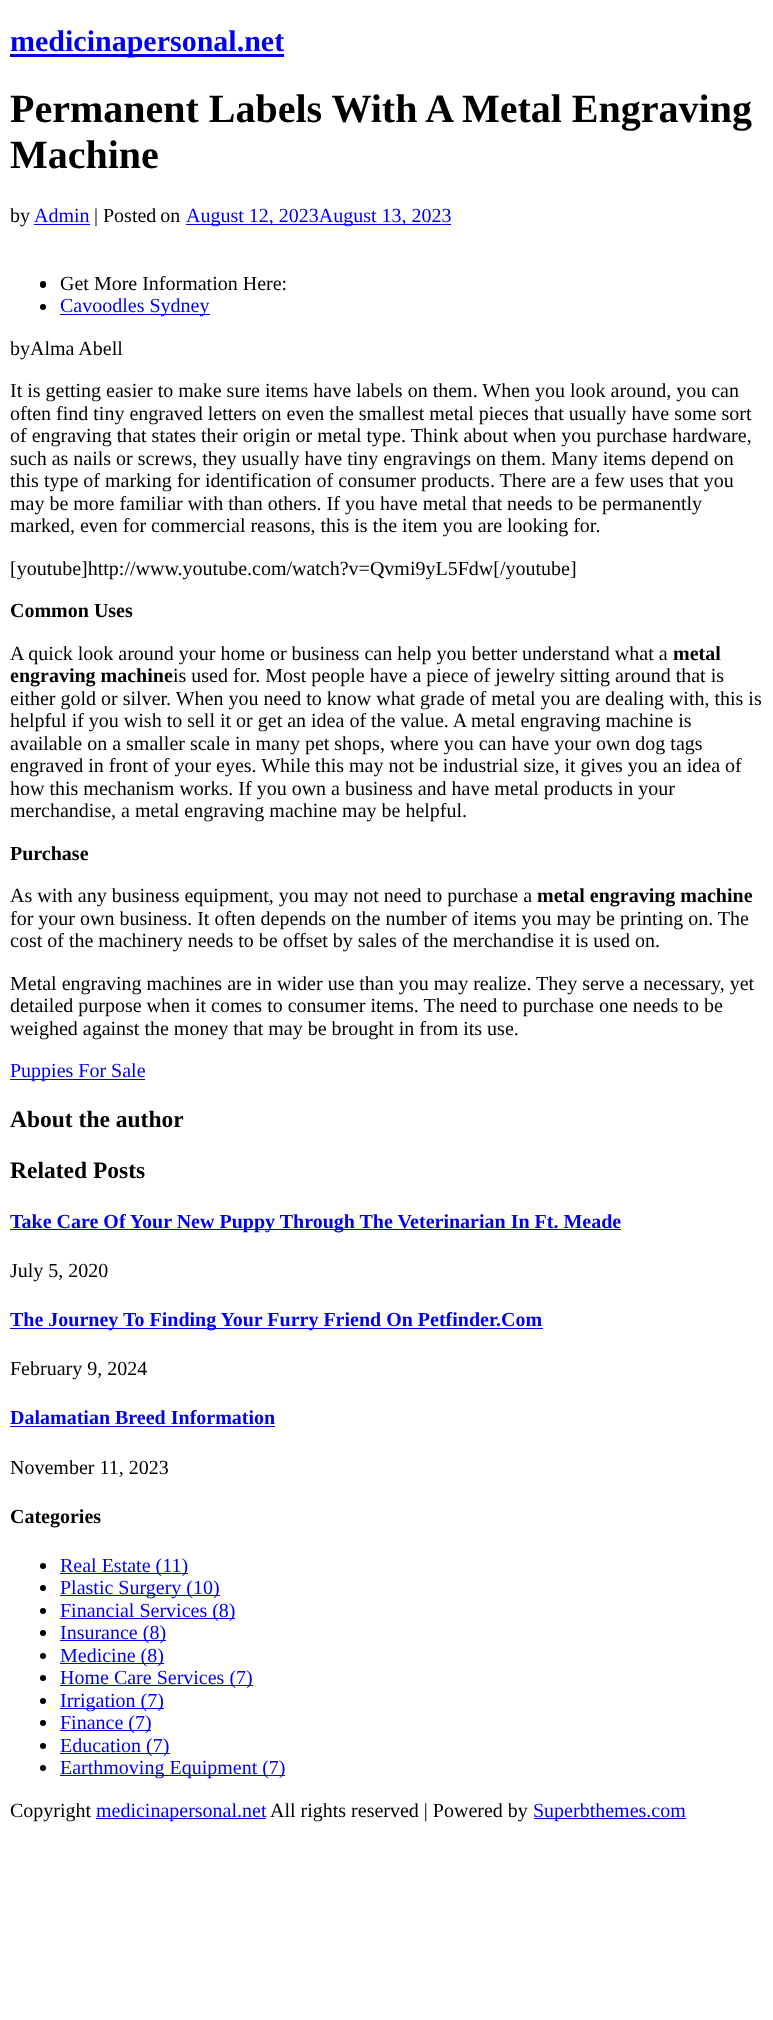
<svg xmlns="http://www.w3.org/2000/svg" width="773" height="2020">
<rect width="100%" height="100%" fill="#fff"/>
<rect x="10" y="54" width="274" height="3" fill="#00e"/>
<text x="10" y="51" style="font-family:Liberation Serif;font-size:30px;font-weight:bold;fill:#00e">medicinapersonal.net</text>
<text x="10" y="122" style="font-family:Liberation Serif;font-size:40px;font-weight:bold;fill:#000">Permanent Labels With A Metal Engraving</text>
<text x="10" y="168" style="font-family:Liberation Serif;font-size:40px;font-weight:bold;fill:#000">Machine</text>
<text x="10" y="222" style="font-family:Liberation Serif;font-size:20px;fill:#000">by</text>
<rect x="34" y="224" width="56" height="1" fill="#00e"/>
<text x="34" y="222" style="font-family:Liberation Serif;font-size:20px;fill:#00e">Admin</text>
<text x="94" y="222" style="font-family:Liberation Serif;font-size:20px;fill:#000">|</text>
<text x="103" y="222" word-spacing="-1" style="font-family:Liberation Serif;font-size:20px;fill:#000">Posted on</text>
<rect x="186" y="224" width="265" height="1" fill="#00e"/>
<text x="186" y="222" style="font-family:Liberation Serif;font-size:20px;fill:#00e">August 12, 2023August 13, 2023</text>
<rect x="40" y="281" width="6" height="7" rx="3" fill="#000"/>
<text x="60" y="290" style="font-family:Liberation Serif;font-size:20px;fill:#000">Get More Information Here:</text>
<circle cx="43" cy="307" r="3" fill="#000"/>
<rect x="60" y="314" width="150" height="1" fill="#00e"/>
<text x="60" y="312" style="font-family:Liberation Serif;font-size:20px;fill:#00e">Cavoodles Sydney</text>
<text x="10" y="355" style="font-family:Liberation Serif;font-size:20px;fill:#000">byAlma Abell</text>
<text x="10" y="397" style="font-family:Liberation Serif;font-size:20px;fill:#000">It is getting easier to make sure items have labels on them. When you look around, you can</text>
<text x="10" y="420" style="font-family:Liberation Serif;font-size:20px;fill:#000">often find tiny engraved letters on even the smallest metal pieces that usually have some sort</text>
<text x="10" y="442" style="font-family:Liberation Serif;font-size:20px;fill:#000">of engraving that states their origin or metal type. Think about when you purchase hardware,</text>
<text x="10" y="465" style="font-family:Liberation Serif;font-size:20px;fill:#000">such as nails or screws, they usually have tiny engravings on them. Many items depend on</text>
<text x="10" y="487" style="font-family:Liberation Serif;font-size:20px;fill:#000">this type of marking for identification of consumer products. There are a few uses that you</text>
<text x="10" y="510" style="font-family:Liberation Serif;font-size:20px;fill:#000">may be more familiar with than others. If you have metal that needs to be permanently</text>
<text x="10" y="532" style="font-family:Liberation Serif;font-size:20px;fill:#000">marked, even for commercial reasons, this is the item you are looking for.</text>
<text x="10" y="575" style="font-family:Liberation Serif;font-size:20px;fill:#000">[youtube]http://www.youtube.com/watch?v=Qvmi9yL5Fdw[/youtube]</text>
<text x="10" y="617" style="font-family:Liberation Serif;font-size:20px;font-weight:bold;fill:#000">Common Uses</text>
<text x="10" y="660" style="font-family:Liberation Serif;font-size:20px;fill:#000">A quick look around your home or business can help you better understand what a</text>
<text x="673" y="660" style="font-family:Liberation Serif;font-size:20px;font-weight:bold;fill:#000">metal</text>
<text x="10" y="682" style="font-family:Liberation Serif;font-size:20px;font-weight:bold;fill:#000">engraving machine</text>
<text x="173" y="682" style="font-family:Liberation Serif;font-size:20px;fill:#000">is used for. Most people have a piece of jewelry sitting around that is</text>
<text x="10" y="705" style="font-family:Liberation Serif;font-size:20px;fill:#000">either gold or silver. When you need to know what grade of metal you are dealing with, this is</text>
<text x="10" y="727" style="font-family:Liberation Serif;font-size:20px;fill:#000">helpful if you wish to sell it or get an idea of the value. A metal engraving machine is</text>
<text x="10" y="750" style="font-family:Liberation Serif;font-size:20px;fill:#000">available on a smaller scale in many pet shops, where you can have your own dog tags</text>
<text x="10" y="772" style="font-family:Liberation Serif;font-size:20px;fill:#000">engraved in front of your eyes. While this may not be industrial size, it gives you an idea of</text>
<text x="10" y="795" style="font-family:Liberation Serif;font-size:20px;fill:#000">how this mechanism works. If you own a business and have metal products in your</text>
<text x="10" y="817" style="font-family:Liberation Serif;font-size:20px;fill:#000">merchandise, a metal engraving machine may be helpful.</text>
<text x="10" y="860" style="font-family:Liberation Serif;font-size:20px;font-weight:bold;fill:#000">Purchase</text>
<text x="10" y="902" style="font-family:Liberation Serif;font-size:20px;fill:#000">As with any business equipment, you may not need to purchase a</text>
<text x="537" y="902" style="font-family:Liberation Serif;font-size:20px;font-weight:bold;fill:#000">metal engraving machine</text>
<text x="10" y="925" style="font-family:Liberation Serif;font-size:20px;fill:#000">for your own business. It often depends on the number of items you may be printing on. The</text>
<text x="10" y="947" style="font-family:Liberation Serif;font-size:20px;fill:#000">cost of the machinery needs to be offset by sales of the merchandise it is used on.</text>
<text x="10" y="990" style="font-family:Liberation Serif;font-size:20px;fill:#000">Metal engraving machines are in wider use than you may realize. They serve a necessary, yet</text>
<text x="10" y="1012" style="font-family:Liberation Serif;font-size:20px;fill:#000">detailed purpose when it comes to consumer items. The need to purchase one needs to be</text>
<text x="10" y="1035" style="font-family:Liberation Serif;font-size:20px;fill:#000">weighed against the money that may be brought in from its use.</text>
<rect x="10" y="1079" width="135" height="1" fill="#00e"/>
<text x="10" y="1077" style="font-family:Liberation Serif;font-size:20px;fill:#00e">Puppies For Sale</text>
<text x="10" y="1127" style="font-family:Liberation Serif;font-size:23.5px;font-weight:bold;fill:#000">About the author</text>
<text x="10" y="1178" style="font-family:Liberation Serif;font-size:23.5px;font-weight:bold;fill:#000">Related Posts</text>
<rect x="10" y="1229" width="611" height="1" fill="#00e"/>
<text x="10" y="1228" style="font-family:Liberation Serif;font-size:20px;font-weight:bold;fill:#00e">Take Care Of Your New Puppy Through The Veterinarian In Ft. Meade</text>
<text x="10" y="1277" style="font-family:Liberation Serif;font-size:20px;fill:#000">July 5, 2020</text>
<rect x="10" y="1328" width="533" height="1" fill="#00e"/>
<text x="10" y="1326" style="font-family:Liberation Serif;font-size:20px;font-weight:bold;fill:#00e">The Journey To Finding Your Furry Friend On Petfinder.Com</text>
<text x="10" y="1375" style="font-family:Liberation Serif;font-size:20px;fill:#000">February 9, 2024</text>
<text x="10" y="1424" style="font-family:Liberation Serif;font-size:20px;font-weight:bold;fill:#00e">Dalamatian Breed Information</text>
<rect x="10" y="1426" width="265" height="1" fill="#00e"/>
<text x="10" y="1474" style="font-family:Liberation Serif;font-size:20px;fill:#000">November 11, 2023</text>
<text x="10" y="1523" style="font-family:Liberation Serif;font-size:20px;font-weight:bold;fill:#000">Categories</text>
<circle cx="43" cy="1566" r="3" fill="#000"/>
<rect x="60" y="1573" width="128" height="1" fill="#00e"/>
<text x="60" y="1572" style="font-family:Liberation Serif;font-size:20px;fill:#00e">Real Estate (11)</text>
<circle cx="43" cy="1588" r="3" fill="#000"/>
<rect x="60" y="1595" width="160" height="1" fill="#00e"/>
<text x="60" y="1594" style="font-family:Liberation Serif;font-size:20px;fill:#00e">Plastic Surgery (10)</text>
<circle cx="43" cy="1611" r="3" fill="#000"/>
<rect x="60" y="1618" width="175" height="1" fill="#00e"/>
<text x="60" y="1617" style="font-family:Liberation Serif;font-size:20px;fill:#00e">Financial Services (8)</text>
<circle cx="43" cy="1633" r="3" fill="#000"/>
<rect x="60" y="1640" width="106" height="1" fill="#00e"/>
<text x="60" y="1639" style="font-family:Liberation Serif;font-size:20px;fill:#00e">Insurance (8)</text>
<circle cx="43" cy="1656" r="3" fill="#000"/>
<rect x="60" y="1663" width="104" height="1" fill="#00e"/>
<text x="60" y="1662" style="font-family:Liberation Serif;font-size:20px;fill:#00e">Medicine (8)</text>
<circle cx="43" cy="1678" r="3" fill="#000"/>
<rect x="60" y="1685" width="193" height="1" fill="#00e"/>
<text x="60" y="1684" style="font-family:Liberation Serif;font-size:20px;fill:#00e">Home Care Services (7)</text>
<circle cx="43" cy="1701" r="3" fill="#000"/>
<rect x="60" y="1708" width="104" height="1" fill="#00e"/>
<text x="60" y="1707" style="font-family:Liberation Serif;font-size:20px;fill:#00e">Irrigation (7)</text>
<circle cx="43" cy="1723" r="3" fill="#000"/>
<rect x="60" y="1730" width="91" height="1" fill="#00e"/>
<text x="60" y="1729" style="font-family:Liberation Serif;font-size:20px;fill:#00e">Finance (7)</text>
<circle cx="43" cy="1746" r="3" fill="#000"/>
<rect x="60" y="1753" width="110" height="1" fill="#00e"/>
<text x="60" y="1752" style="font-family:Liberation Serif;font-size:20px;fill:#00e">Education (7)</text>
<circle cx="43" cy="1768" r="3" fill="#000"/>
<rect x="60" y="1775" width="225" height="1" fill="#00e"/>
<text x="60" y="1774" style="font-family:Liberation Serif;font-size:20px;fill:#00e">Earthmoving Equipment (7)</text>
<text x="10" y="1817" style="font-family:Liberation Serif;font-size:20px;fill:#000">Copyright</text>
<rect x="96" y="1818" width="170" height="1" fill="#00e"/>
<text x="96" y="1817" style="font-family:Liberation Serif;font-size:20px;fill:#00e">medicinapersonal.net</text>
<text x="270" y="1817" style="font-family:Liberation Serif;font-size:20px;fill:#000">All rights reserved | Powered by</text>
<rect x="534" y="1818" width="152" height="1" fill="#00e"/>
<text x="533" y="1817" style="font-family:Liberation Serif;font-size:20px;fill:#00e">Superbthemes.com</text>
</svg>
